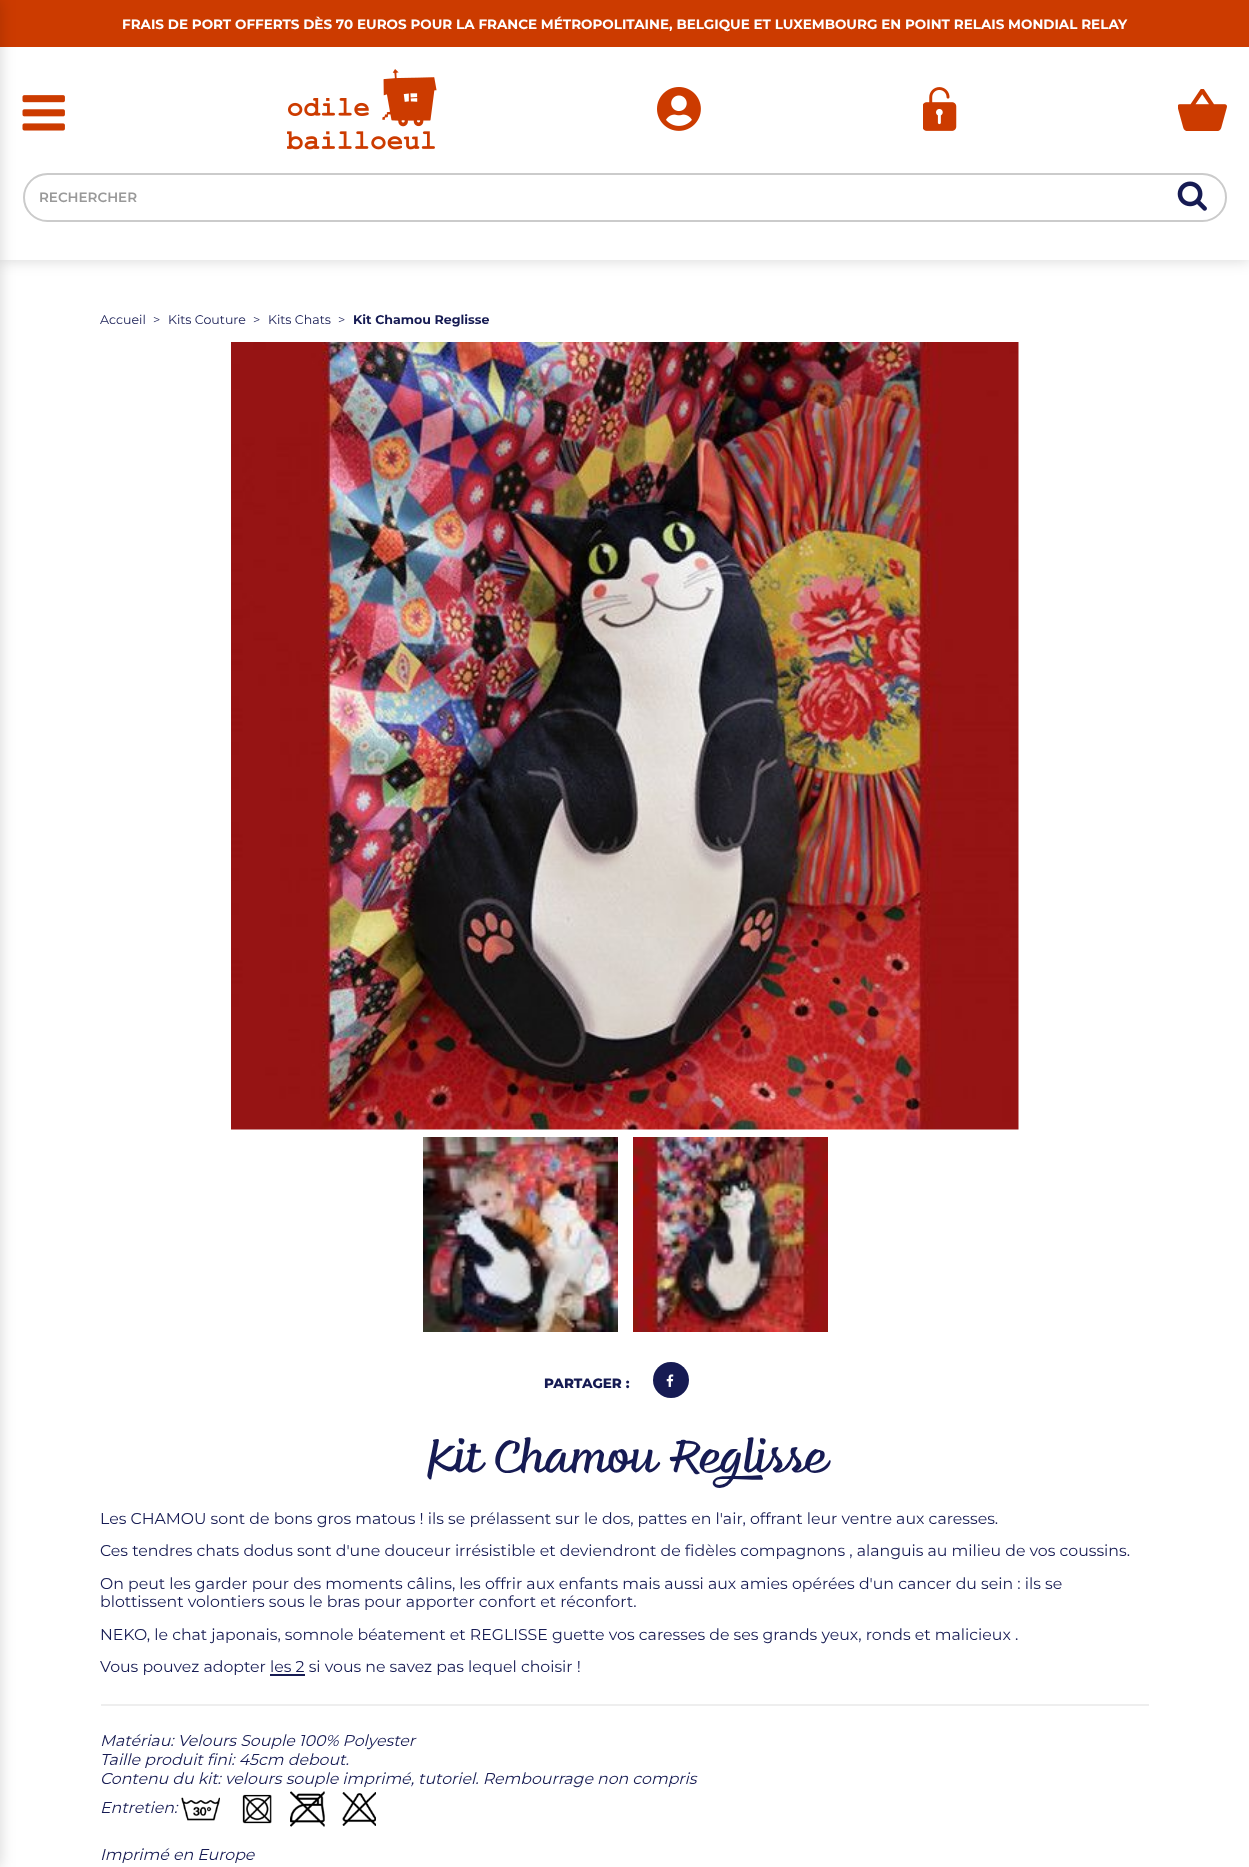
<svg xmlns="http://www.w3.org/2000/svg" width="1249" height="1867">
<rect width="100%" height="100%" fill="#fff"/>
<rect width="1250" height="260" fill="#0000002b" filter="blur(7.5px)"/>
<rect y="47" width="1249" height="213" fill="#fff"/>
<rect width="1249" height="47" fill="#cc3b00"/>
<image x="22" y="95" width="43" height="36" href="media/1.png"/>
<rect x="24" y="174" width="1202" height="47" rx="23.5" fill="none" stroke="#cbcbcb" stroke-width="2"/>
<rect x="-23" width="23" height="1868" fill="#0000002b" filter="blur(7.5px)"/>
<text x="122" y="29" style="font-family:Montserrat;font-size:13.5px;font-weight:bold;fill:#fff">FRAIS DE PORT OFFERTS DÈS 70 EUROS POUR LA FRANCE MÉTROPOLITAINE, BELGIQUE ET LUXEMBOURG EN POINT RELAIS MONDIAL RELAY</text>
<image x="287" y="69" width="150" height="81" href="media/2.png"/>
<image x="657" y="87" width="44" height="44" href="media/3.png"/>
<image x="923" y="87" width="34" height="44" href="media/4.png"/>
<image x="1178" y="89" width="49" height="42" href="media/5.png"/>
<text x="39" y="202" style="font-family:Montserrat;font-size:13.5px;font-weight:600;fill:#999">RECHERCHER</text>
<image x="1177" y="181" width="30" height="30" href="media/6.png"/>
<text x="100" y="324" style="font-family:Montserrat;font-size:12.6px;fill:#161b53">Accueil</text>
<text x="153" y="324" style="font-family:Montserrat;font-size:12.6px;fill:#161b53">&gt;</text>
<text x="168" y="324" style="font-family:Montserrat;font-size:12.6px;fill:#161b53">Kits Couture</text>
<text x="253" y="324" style="font-family:Montserrat;font-size:12.6px;fill:#161b53">&gt;</text>
<text x="268" y="324" style="font-family:Montserrat;font-size:12.6px;fill:#161b53">Kits Chats</text>
<text x="338" y="324" style="font-family:Montserrat;font-size:12.6px;fill:#161b53">&gt;</text>
<text x="353" y="324" style="font-family:Montserrat;font-size:12.6px;font-weight:bold;fill:#161b53">Kit Chamou Reglisse</text>
<image x="231" y="342" width="788" height="788" href="media/7.png"/>
<image x="423" y="1137" width="195" height="195" href="media/8.png"/>
<image x="633" y="1137" width="195" height="195" href="media/9.png"/>
<text x="544" y="1388" style="font-family:Montserrat;font-size:13.5px;font-weight:800;fill:#161b53">PARTAGER :</text>
<circle cx="671" cy="1380" r="18" fill="#161b53"/>
<image x="666" y="1374" width="8" height="13" href="media/10.png"/>
<text x="426" y="1472" style="font-family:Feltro;font-size:45px;fill:#161b53">Kit Chamou Reglisse</text>
<text x="100" y="1524" style="font-family:Montserrat;font-size:15.75px;fill:#161b53">Les CHAMOU sont de bons gros matous ! ils se prélassent sur le dos, pattes en l'air, offrant leur ventre aux caresses.</text>
<text x="100" y="1556" style="font-family:Montserrat;font-size:15.75px;fill:#161b53">Ces tendres chats dodus sont d'une douceur irrésistible et deviendront de fidèles compagnons , alanguis au milieu de vos coussins.</text>
<text x="100" y="1589" style="font-family:Montserrat;font-size:15.75px;fill:#161b53">On peut les garder pour des moments câlins, les offrir aux enfants mais aussi aux amies opérées d'un cancer du sein : ils se</text>
<text x="100" y="1607" style="font-family:Montserrat;font-size:15.75px;fill:#161b53">blottissent volontiers sous le bras pour apporter confort et réconfort.</text>
<text x="100" y="1640" style="font-family:Montserrat;font-size:15.75px;fill:#161b53">NEKO, le chat japonais, somnole béatement et REGLISSE guette vos caresses de ses grands yeux, ronds et malicieux .</text>
<text x="100" y="1672" style="font-family:Montserrat;font-size:15.75px;fill:#161b53">Vous pouvez adopter les 2 si vous ne savez pas lequel choisir !</text>
<rect x="270" y="1674" width="35" height="2" fill="#161b53"/>
<rect x="101" y="1704" width="1048" height="2" fill="#eee"/>
<text x="100" y="1746" style="font-family:Montserrat;font-size:15.75px;font-style:italic;fill:#161b53">Matériau: Velours Souple 100% Polyester</text>
<text x="100" y="1765" style="font-family:Montserrat;font-size:15.75px;font-style:italic;fill:#161b53">Taille produit fini: 45cm debout.</text>
<text x="100" y="1784" style="font-family:Montserrat;font-size:15.75px;font-style:italic;fill:#161b53">Contenu du kit: velours souple imprimé, tutoriel. Rembourrage non compris</text>
<text x="100" y="1813" style="font-family:Montserrat;font-size:15.75px;font-style:italic;fill:#161b53">Entretien:</text>
<image x="181" y="1791" width="195" height="36" href="media/11.png"/>
<text x="100" y="1860" style="font-family:Montserrat;font-size:15.75px;font-style:italic;fill:#161b53">Imprimé en Europe</text>
</svg>
